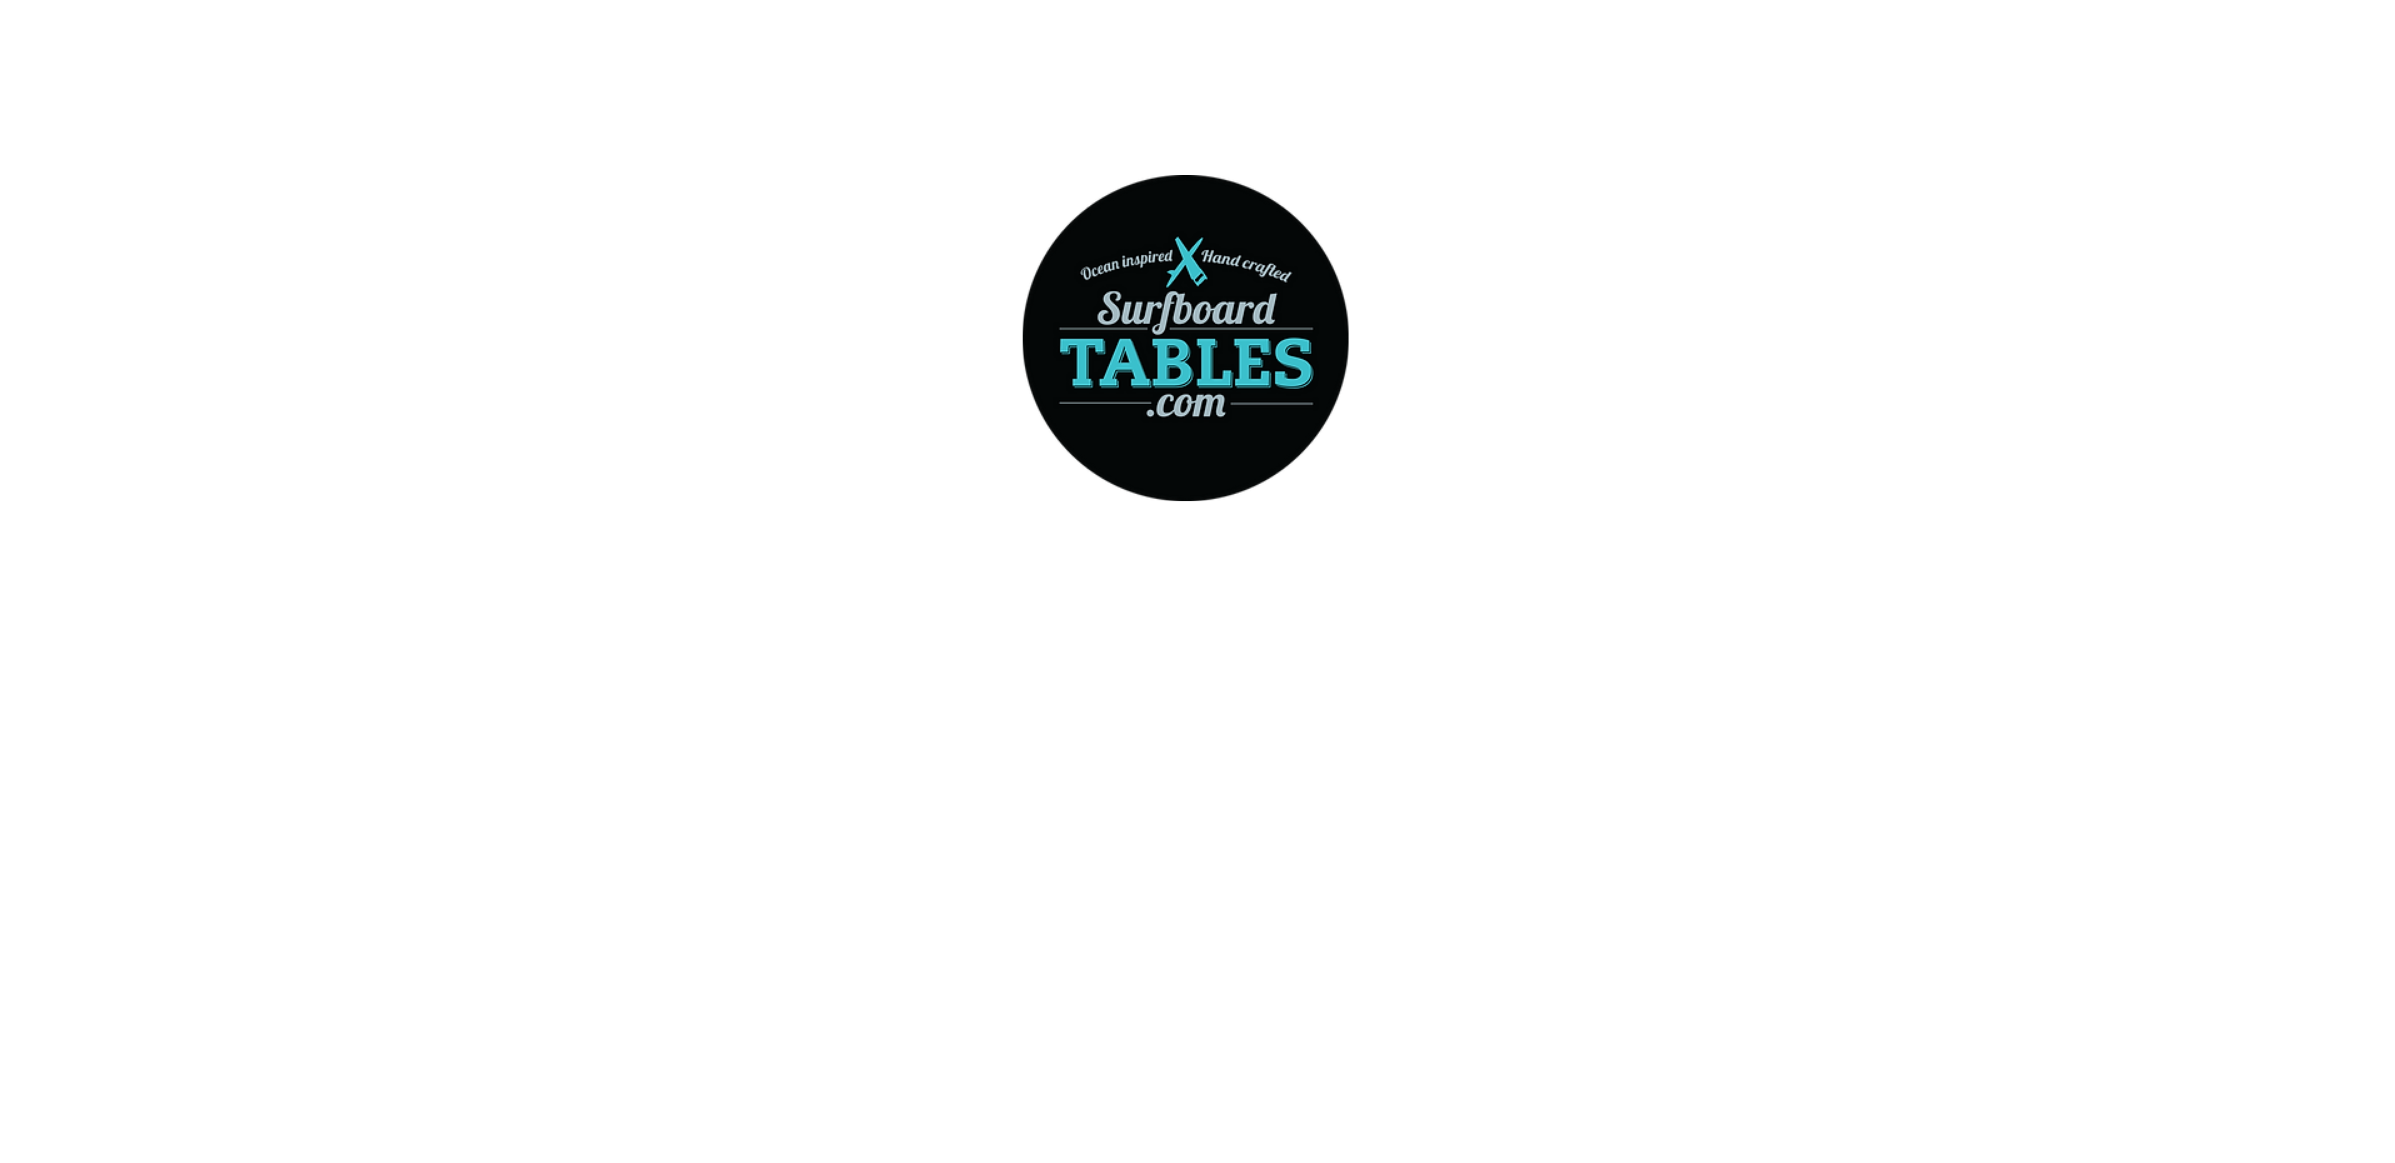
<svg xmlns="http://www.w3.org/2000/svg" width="2395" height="1163">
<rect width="100%" height="100%" fill="#fff"/>
<image x="1022" y="175" width="327" height="327" href="media/1.png"/>
</svg>
